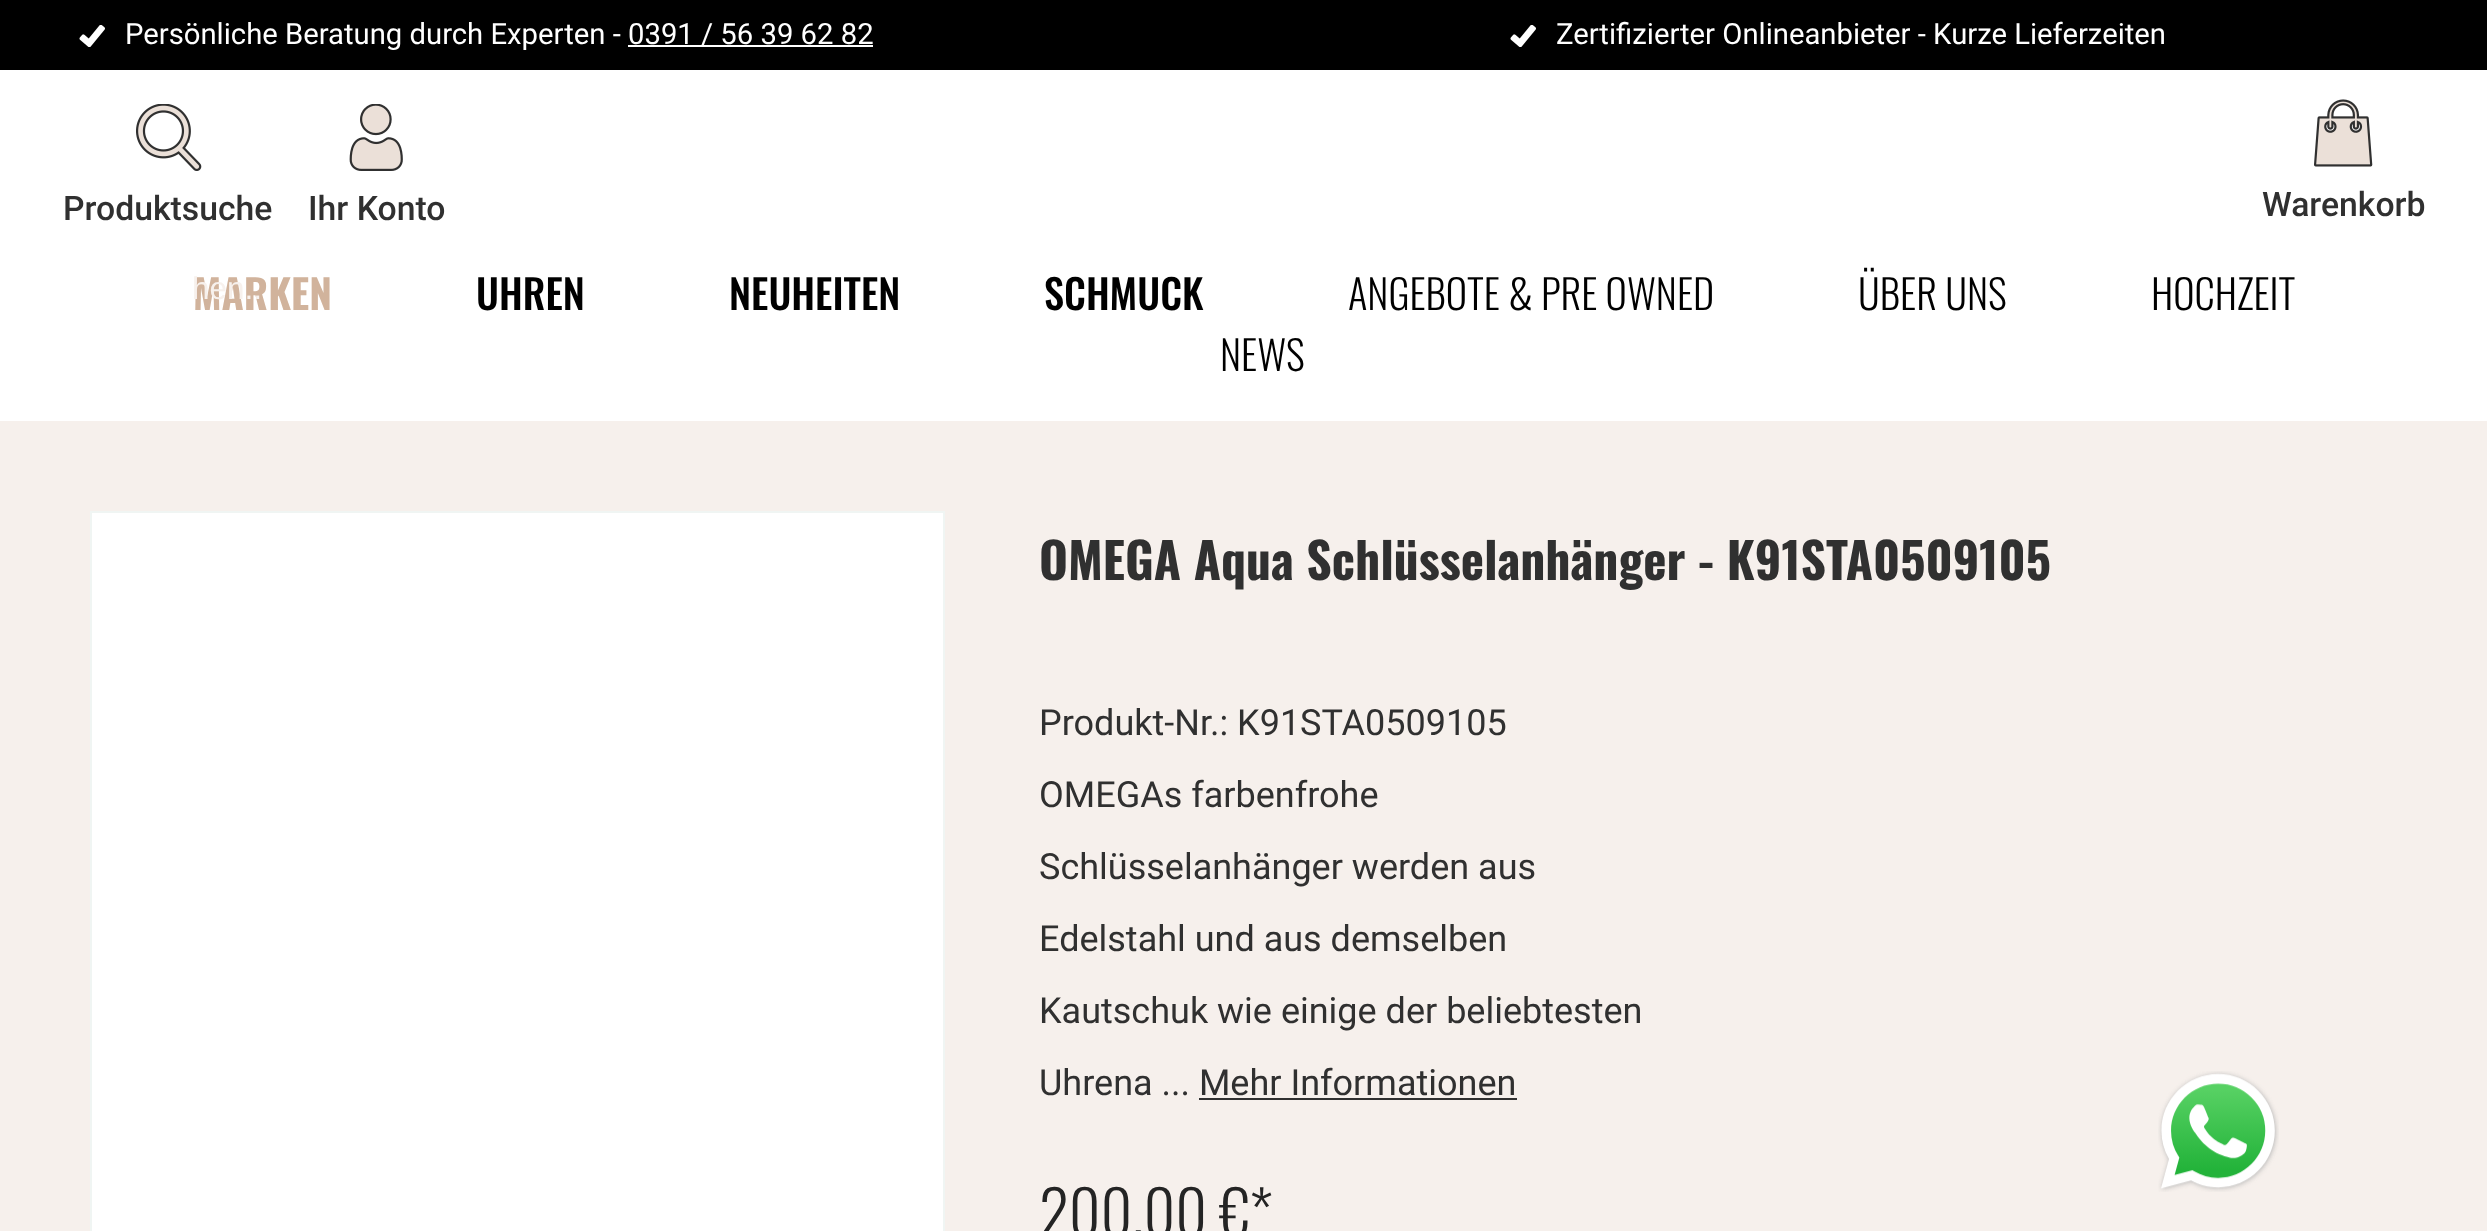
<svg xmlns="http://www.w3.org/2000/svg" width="2487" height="1231">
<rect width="100%" height="100%" fill="#fff"/>
<rect width="2487" height="70" fill="#000"/>
<image x="79" y="25" width="26" height="22" href="media/1.png"/>
<text x="125" y="44" style="font-family:Roboto;font-size:29.25px;fill:#fff">Persönliche Beratung durch Experten -</text>
<rect x="628" y="45" width="245" height="2" fill="#fff"/>
<text x="628" y="44" style="font-family:Roboto;font-size:29.25px;fill:#fff">0391 / 56 39 62 82</text>
<image x="1510" y="25" width="26" height="22" href="media/1.png"/>
<text x="1556" y="44" style="font-family:Roboto;font-size:29.25px;fill:#fff">Zertifizierter Onlineanbieter - Kurze Lieferzeiten</text>
<image x="136" y="104" width="66" height="67" href="media/2.png"/>
<text x="63" y="220" style="font-family:Roboto;font-size:33.75px;font-weight:500;fill:#303030">Produktsuche</text>
<image x="349" y="104" width="54" height="67" href="media/3.png"/>
<text x="308" y="220" style="font-family:Roboto;font-size:33.75px;font-weight:500;fill:#303030">Ihr Konto</text>
<text x="193" y="310" style="font-family:Oswald;font-size:40.5px;font-weight:bold;fill:#d1b39c">MARKEN</text>
<text x="192" y="299" style="font-family:Liberation Sans;font-size:31.5px;fill:#f7f1ed">hen..</text>
<image x="2314" y="99" width="59" height="68" href="media/4.png"/>
<text x="2262" y="216" style="font-family:Roboto;font-size:33.75px;font-weight:500;fill:#303030">Warenkorb</text>
<text x="476" y="310" style="font-family:Oswald;font-size:40.5px;font-weight:500;fill:#000">UHREN</text>
<text x="729" y="310" style="font-family:Oswald;font-size:40.5px;font-weight:500;fill:#000">NEUHEITEN</text>
<text x="1044" y="310" style="font-family:Oswald;font-size:40.5px;font-weight:500;fill:#000">SCHMUCK</text>
<text x="1348" y="310" style="font-family:Oswald;font-size:40.5px;font-weight:300;fill:#000">ANGEBOTE &amp; PRE OWNED</text>
<text x="1858" y="310" style="font-family:Oswald;font-size:40.5px;font-weight:300;fill:#000">ÜBER UNS</text>
<text x="2151" y="310" style="font-family:Oswald;font-size:40.5px;font-weight:300;fill:#000">HOCHZEIT</text>
<text x="1220" y="371" style="font-family:Oswald;font-size:40.5px;font-weight:300;fill:#000">NEWS</text>
<rect y="421" width="2487" height="810" fill="#f6f0ec"/>
<rect x="91" y="512" width="853" height="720" fill="#fff" stroke="#f0f5f3" stroke-width="2"/>
<text x="1039" y="580" style="font-family:Oswald;font-size:49.5px;font-weight:bold;fill:#303030">OMEGA Aqua Schlüsselanhänger - K91STA0509105</text>
<text x="1039" y="735" style="font-family:Roboto;font-size:36px;fill:#303030">Produkt-Nr.: K91STA0509105</text>
<text x="1039" y="807" style="font-family:Roboto;font-size:36px;fill:#303030">OMEGAs farbenfrohe</text>
<text x="1039" y="879" style="font-family:Roboto;font-size:36px;fill:#303030">Schlüsselanhänger werden aus</text>
<text x="1039" y="951" style="font-family:Roboto;font-size:36px;fill:#303030">Edelstahl und aus demselben</text>
<text x="1039" y="1023" style="font-family:Roboto;font-size:36px;fill:#303030">Kautschuk wie einige der beliebtesten</text>
<text x="1039" y="1095" style="font-family:Roboto;font-size:36px;fill:#303030">Uhrena ... Mehr Informationen</text>
<rect x="1199" y="1098" width="318" height="2" fill="#303030"/>
<text x="1039" y="1237" style="font-family:Oswald;font-size:61.5px;font-weight:300;fill:#242424">200,00 €*</text>
<image x="2158" y="1071" width="121" height="121" href="media/5.png"/>
</svg>
